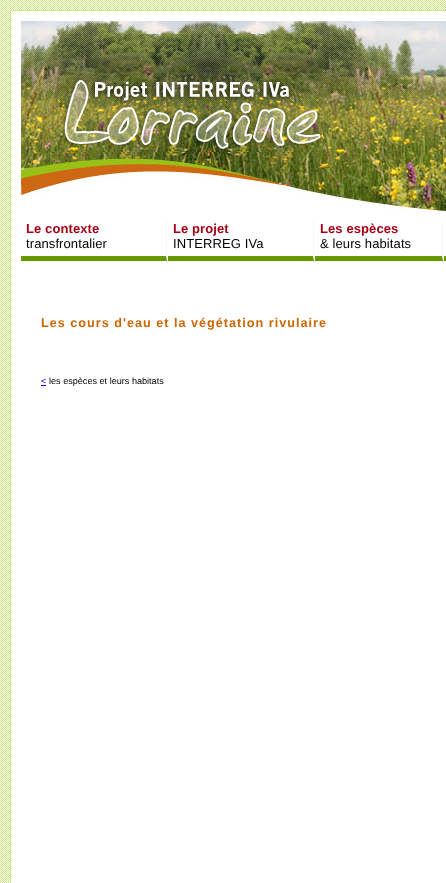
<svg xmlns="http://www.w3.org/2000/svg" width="446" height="883">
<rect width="100%" height="100%" fill="#fff"/>
<image x="0" y="0" width="446" height="883" href="media/1.png"/>
<rect x="10.5" y="10.5" width="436" height="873" fill="#fff" stroke="#d1e88d"/>
<image x="21" y="21" width="425" height="192" href="media/2.png"/>
<image x="48" y="34" width="275" height="118" href="media/3.png"/>
<path d="M167 221v40l-1-5v-35z" fill="#f5f5f5"/>
<path d="M167 261h-146v-5h145z" fill="#690"/>
<text x="26" y="233" style="font-family:Liberation Sans;font-size:13px;font-weight:bold;letter-spacing:0.1px;fill:#a40217">Le contexte</text>
<text x="26" y="248" style="font-family:Liberation Sans;font-size:13px;letter-spacing:0.1px;fill:#000">transfrontalier</text>
<path d="M314 221v40l-1-5v-35z" fill="#f5f5f5"/>
<path d="M314 261h-146v-5h145z" fill="#690"/>
<text x="173" y="233" style="font-family:Liberation Sans;font-size:13px;font-weight:bold;letter-spacing:0.1px;fill:#a40217">Le projet</text>
<text x="173" y="248" style="font-family:Liberation Sans;font-size:13px;letter-spacing:0.1px;fill:#000">INTERREG IVa</text>
<path d="M443 221v40l-1-5v-35z" fill="#f5f5f5"/>
<path d="M443 261h-128v-5h127z" fill="#690"/>
<text x="320" y="233" style="font-family:Liberation Sans;font-size:13px;font-weight:bold;letter-spacing:0.1px;fill:#a40217">Les espèces</text>
<text x="320" y="248" style="font-family:Liberation Sans;font-size:13px;letter-spacing:0.1px;fill:#000">&amp; leurs habitats</text>
<path d="M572 261h-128v-5h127z" fill="#690"/>
<text x="41" y="327" style="font-family:Liberation Sans;font-size:12.65px;font-weight:bold;letter-spacing:1px;fill:#c60">Les cours d'eau et la végétation rivulaire</text>
<text x="41" y="384" style="font-family:Liberation Sans;font-size:9.1px;fill:#00e">&lt;</text>
<rect x="41" y="385" width="5" height="1" fill="#00e"/>
<text x="49" y="384" style="font-family:Liberation Sans;font-size:9.1px;fill:#000">les espèces et leurs habitats</text>
</svg>
